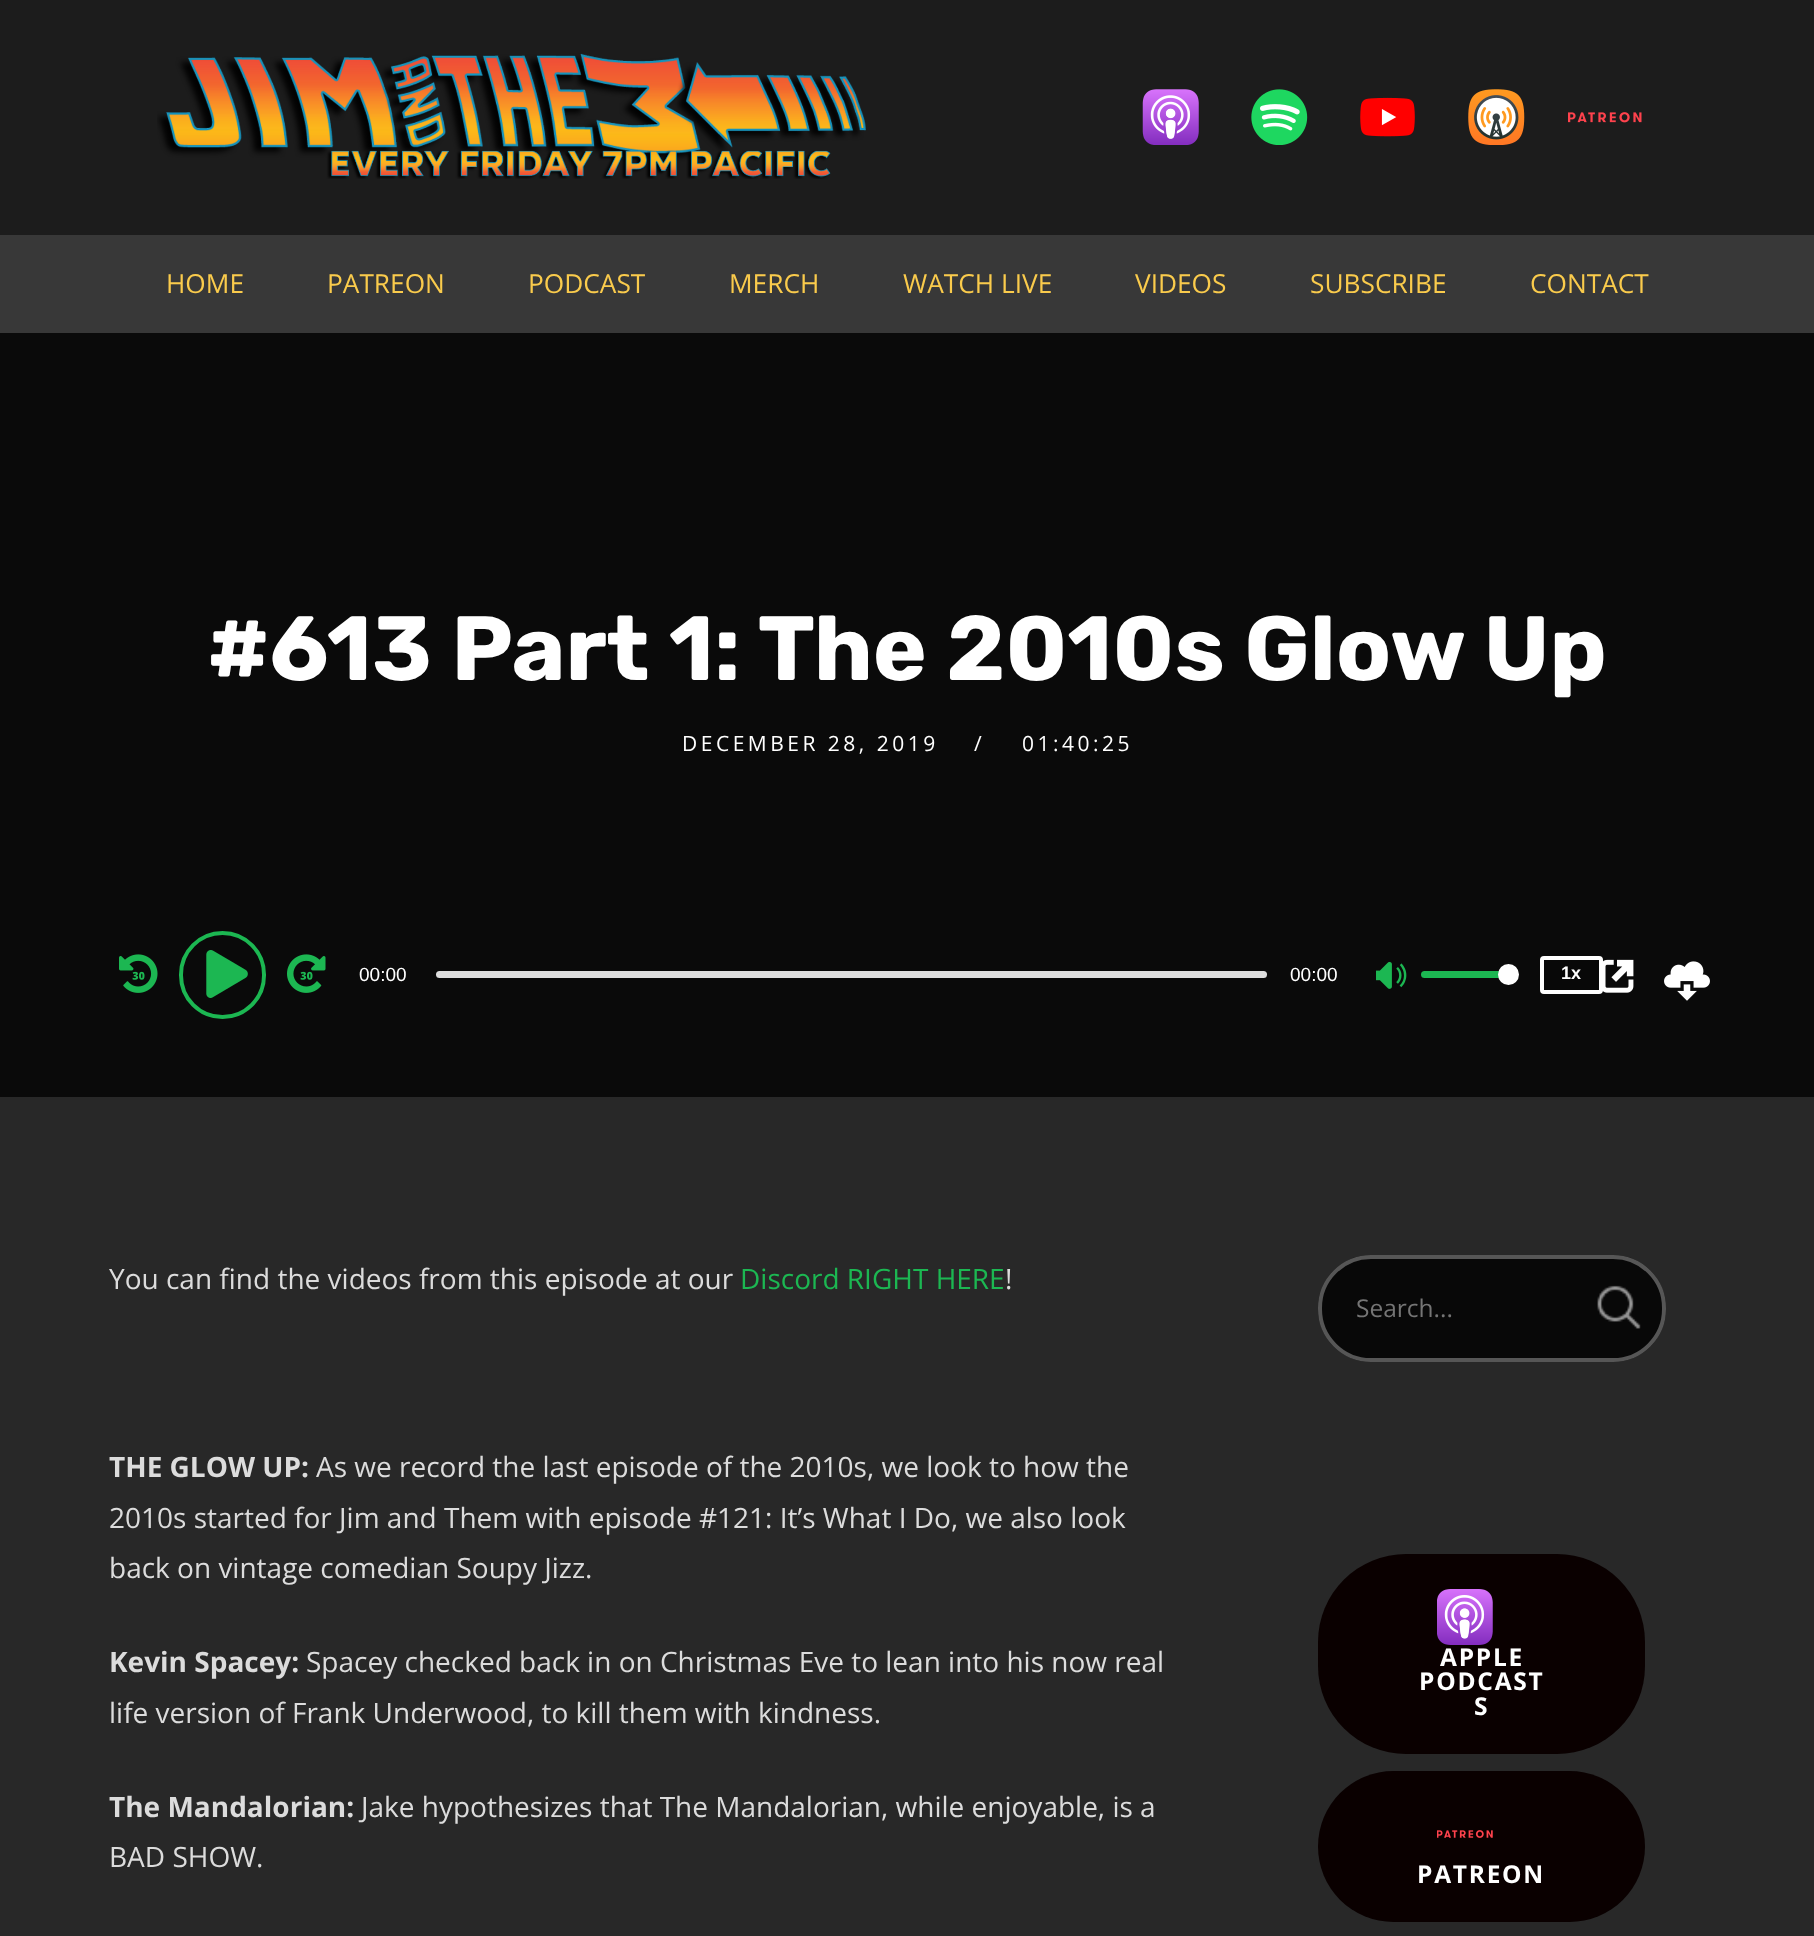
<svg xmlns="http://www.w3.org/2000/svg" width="1814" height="1936">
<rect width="100%" height="100%" fill="#282828"/>
<rect width="1814" height="235" fill="#1c1c1c"/>
<image x="157" y="53" width="709" height="126" href="media/1.png"/>
<image x="1142" y="89" width="57" height="56" href="media/2.png"/>
<image x="1251" y="89" width="57" height="56" href="media/3.png"/>
<image x="1360" y="97" width="55" height="40" href="media/4.png"/>
<image x="1468" y="89" width="57" height="56" href="media/5.png"/>
<image x="1568" y="112" width="74" height="11" href="media/6.png"/>
<rect y="235" width="1814" height="98" fill="#383838"/>
<text x="166" y="293" style="font-family:Open Sans;font-size:26.25px;fill:#facb4c">HOME</text>
<text x="327" y="293" style="font-family:Open Sans;font-size:26.25px;fill:#facb4c">PATREON</text>
<text x="528" y="293" style="font-family:Open Sans;font-size:26.25px;fill:#facb4c">PODCAST</text>
<text x="729" y="293" style="font-family:Open Sans;font-size:26.25px;fill:#facb4c">MERCH</text>
<text x="903" y="293" style="font-family:Open Sans;font-size:26.25px;fill:#facb4c">WATCH LIVE</text>
<text x="1135" y="293" style="font-family:Open Sans;font-size:26.25px;fill:#facb4c">VIDEOS</text>
<text x="1310" y="293" style="font-family:Open Sans;font-size:26.25px;fill:#facb4c">SUBSCRIBE</text>
<text x="1530" y="293" style="font-family:Open Sans;font-size:26.25px;fill:#facb4c">CONTACT</text>
<rect y="333" width="1814" height="764" fill="#0a0a0a"/>
<text x="207" y="680" style="font-family:Rubik;font-size:91px;font-weight:bold;fill:#fff">#613 Part 1: The 2010s Glow Up</text>
<text x="682" y="751" style="font-family:Open Sans;font-size:21px;letter-spacing:3.5px;fill:#fff">DECEMBER 28, 2019</text>
<text x="974" y="751" style="font-family:Open Sans;font-size:21px;letter-spacing:3.5px;fill:#fff">/</text>
<text x="1022" y="751" style="font-family:Open Sans;font-size:21px;letter-spacing:3.5px;fill:#fff">01:40:25</text>
<image x="119" y="954" width="39" height="39" href="media/7.png"/>
<rect x="181" y="933" width="83" height="84" rx="41.5" fill="none" stroke="#1cb752" stroke-width="4"/>
<image x="206" y="950" width="42" height="48" href="media/8.png"/>
<image x="287" y="954" width="39" height="39" href="media/9.png"/>
<text x="359" y="981" style="font-family:Liberation Sans;font-size:19px;fill:#fff">00:00</text>
<rect x="436" y="971" width="831" height="7" rx="3.5" fill="#dedede"/>
<text x="1290" y="981" style="font-family:Liberation Sans;font-size:19px;fill:#fff">00:00</text>
<image x="1376" y="961" width="31" height="28" href="media/10.png"/>
<rect x="1421" y="971" width="88" height="7" rx="3.5" fill="#1cb752"/>
<circle cx="1508.5" cy="974.5" r="9.5" fill="#fff" stroke="#fff" stroke-width="2"/>
<image x="1602" y="959" width="32" height="34" href="media/11.png"/>
<rect x="1542" y="958" width="59" height="34" rx="2" fill="#0000001a" stroke="#fff" stroke-width="4"/>
<text x="1561" y="979" style="font-family:Liberation Sans;font-size:18px;font-weight:bold;fill:#fff">1x</text>
<image x="1664" y="961" width="46" height="40" href="media/12.png"/>
<text x="109" y="1289" style="font-family:Open Sans;font-size:28px;fill:#dcdcdc">You can find the videos from this episode at our</text>
<text x="740" y="1289" style="font-family:Open Sans;font-size:28px;fill:#1cb752">Discord RIGHT HERE</text>
<text x="1005" y="1289" style="font-family:Open Sans;font-size:28px;fill:#dcdcdc">!</text>
<text x="109" y="1477" style="font-family:Open Sans;font-size:28px;font-weight:bold;fill:#dcdcdc">THE GLOW UP:</text>
<text x="316" y="1477" style="font-family:Open Sans;font-size:28px;fill:#dcdcdc">As we record the last episode of the 2010s, we look to how the</text>
<text x="109" y="1528" style="font-family:Open Sans;font-size:28px;fill:#dcdcdc">2010s started for Jim and Them with episode #121: It’s What I Do, we also look</text>
<text x="109" y="1578" style="font-family:Open Sans;font-size:28px;fill:#dcdcdc">back on vintage comedian Soupy Jizz.</text>
<text x="109" y="1672" style="font-family:Open Sans;font-size:28px;font-weight:bold;fill:#dcdcdc">Kevin Spacey:</text>
<text x="306" y="1672" style="font-family:Open Sans;font-size:28px;fill:#dcdcdc">Spacey checked back in on Christmas Eve to lean into his now real</text>
<text x="109" y="1723" style="font-family:Open Sans;font-size:28px;fill:#dcdcdc">life version of Frank Underwood, to kill them with kindness.</text>
<text x="109" y="1817" style="font-family:Open Sans;font-size:28px;font-weight:bold;fill:#dcdcdc">The Mandalorian:</text>
<text x="361" y="1817" style="font-family:Open Sans;font-size:28px;fill:#dcdcdc">Jake hypothesizes that The Mandalorian, while enjoyable, is a</text>
<text x="109" y="1867" style="font-family:Open Sans;font-size:28px;fill:#dcdcdc">BAD SHOW.</text>
<rect x="1318" y="1255" width="348" height="107" rx="53" fill="#080808"/>
<image x="1597" y="1285" width="44" height="44" href="media/13.png"/>
<rect x="1320" y="1257" width="344" height="103" rx="51" fill="none" stroke="#565656" stroke-width="4"/>
<text x="1356" y="1317" style="font-family:Open Sans;font-size:24.5px;fill:#757575">Search...</text>
<rect x="1318" y="1554" width="327" height="200" rx="88" fill="#0a0000"/>
<image x="1437" y="1589" width="56" height="56" href="media/14.png"/>
<text x="1440" y="1666" style="font-family:Open Sans;font-size:24.5px;font-weight:bold;letter-spacing:1.75px;fill:#fff">APPLE</text>
<text x="1419" y="1690" style="font-family:Open Sans;font-size:24.5px;font-weight:bold;letter-spacing:1.75px;fill:#fff">PODCAST</text>
<text x="1474" y="1715" style="font-family:Open Sans;font-size:24.5px;font-weight:bold;letter-spacing:1.75px;fill:#fff">S</text>
<rect x="1318" y="1771" width="327" height="151" rx="75.5" fill="#0a0000"/>
<image x="1437" y="1830" width="56" height="8" href="media/15.png"/>
<text x="1417" y="1883" style="font-family:Open Sans;font-size:24.5px;font-weight:bold;letter-spacing:1.75px;fill:#fff">PATREON</text>
</svg>
